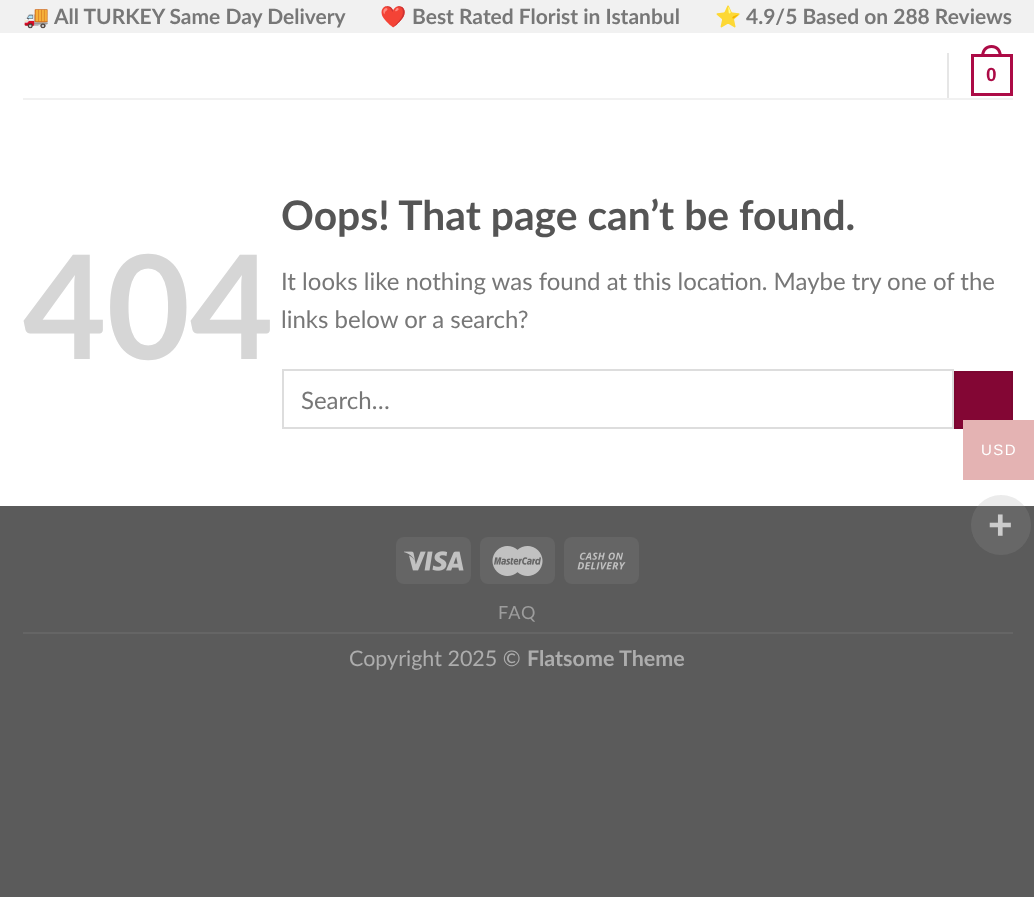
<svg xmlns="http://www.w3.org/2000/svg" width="1034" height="897">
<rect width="100%" height="100%" fill="#5b5b5b"/>
<rect y="33" width="1034" height="473" fill="#fff"/>
<rect width="1034" height="33" fill="#f1f1f1"/>
<text x="23" y="24" style="font-family:Noto Color Emoji;font-size:21px;font-weight:bold;fill:#777">🚚</text>
<text x="54" y="24" style="font-family:Lato;font-size:21px;font-weight:bold;fill:#777">All TURKEY Same Day Delivery</text>
<text x="380" y="24" style="font-family:Noto Color Emoji;font-size:21px;font-weight:bold;fill:#777">❤️</text>
<text x="412" y="24" style="font-family:Lato;font-size:21px;font-weight:bold;fill:#777">Best Rated Florist in Istanbul</text>
<text x="715" y="24" style="font-family:Noto Color Emoji;font-size:21px;font-weight:bold;fill:#777">⭐</text>
<text x="746" y="24" style="font-family:Lato;font-size:21px;font-weight:bold;fill:#777">4.9/5 Based on 288 Reviews</text>
<rect x="947" y="53" width="2" height="45" fill="#e6e6e6"/>
<rect x="972.5" y="55.5" width="39" height="39" fill="none" stroke="#ac0b46" stroke-width="3"/>
<path d="M991.5 45c7 0 10.5 5.5 10.5 12h-21c0-6.5 3.5-12 10.5-12zm0 3c5.5 0 7.5 4.5 7.5 9h-15c0-4.5 2-9 7.5-9z" fill="#ac0b46" fill-rule="evenodd"/>
<text x="986" y="81" style="font-family:Liberation Sans;font-size:19px;font-weight:bold;fill:#ac0b46">0</text>
<rect x="23" y="98" width="990" height="2" fill="#f1f1f1"/>
<text x="23" y="359" style="font-family:Lato;font-size:144px;font-weight:bold;fill:#d6d6d6">404</text>
<text x="281" y="230" style="font-family:Lato;font-size:40.75px;font-weight:bold;fill:#555">Oops! That page can’t be found.</text>
<text x="281" y="290" style="font-family:Lato;font-size:24px;fill:#777">It looks like nothing was found at this location. Maybe try one of the</text>
<text x="281" y="328" style="font-family:Lato;font-size:24px;fill:#777">links below or a search?</text>
<rect x="283" y="370" width="670" height="58" fill="none" stroke="#ddd" stroke-width="2"/>
<text x="301" y="409" style="font-family:Lato;font-size:24px;fill:#777">Search…</text>
<rect x="955" y="372" width="57" height="56" fill="#830634" stroke="#7c0631" stroke-width="2"/>
<rect x="396" y="537" width="75" height="47" rx="8" fill="#656565"/>
<image x="404" y="551" width="60" height="20" href="media/1.png"/>
<rect x="480" y="537" width="75" height="47" rx="8" fill="#656565"/>
<image x="492" y="546" width="51" height="30" href="media/2.png"/>
<rect x="564" y="537" width="75" height="47" rx="8" fill="#656565"/>
<image x="577" y="552" width="49" height="18" href="media/3.png"/>
<rect x="23" y="632" width="990" height="2" fill="#656565"/>
<text x="498" y="619" style="font-family:Lato;font-size:18px;letter-spacing:1px;fill:#9d9d9d">FAQ</text>
<text x="349" y="666" style="font-family:Lato;font-size:21.5px;fill:#adadad">Copyright 2025 ©</text>
<text x="527" y="666" style="font-family:Lato;font-size:21.5px;font-weight:bold;fill:#adadad">Flatsome Theme</text>
<rect x="963" y="420" width="71" height="60" fill="#e4b3b3"/>
<text x="981" y="455" style="font-family:Liberation Sans;font-size:15px;letter-spacing:1.5px;fill:#fff">USD</text>
<circle cx="1001" cy="525" r="30" fill="#99999933"/>
<text x="988" y="539" style="font-family:Liberation Sans;font-size:42px;font-weight:bold;fill:#ccc">+</text>
</svg>
